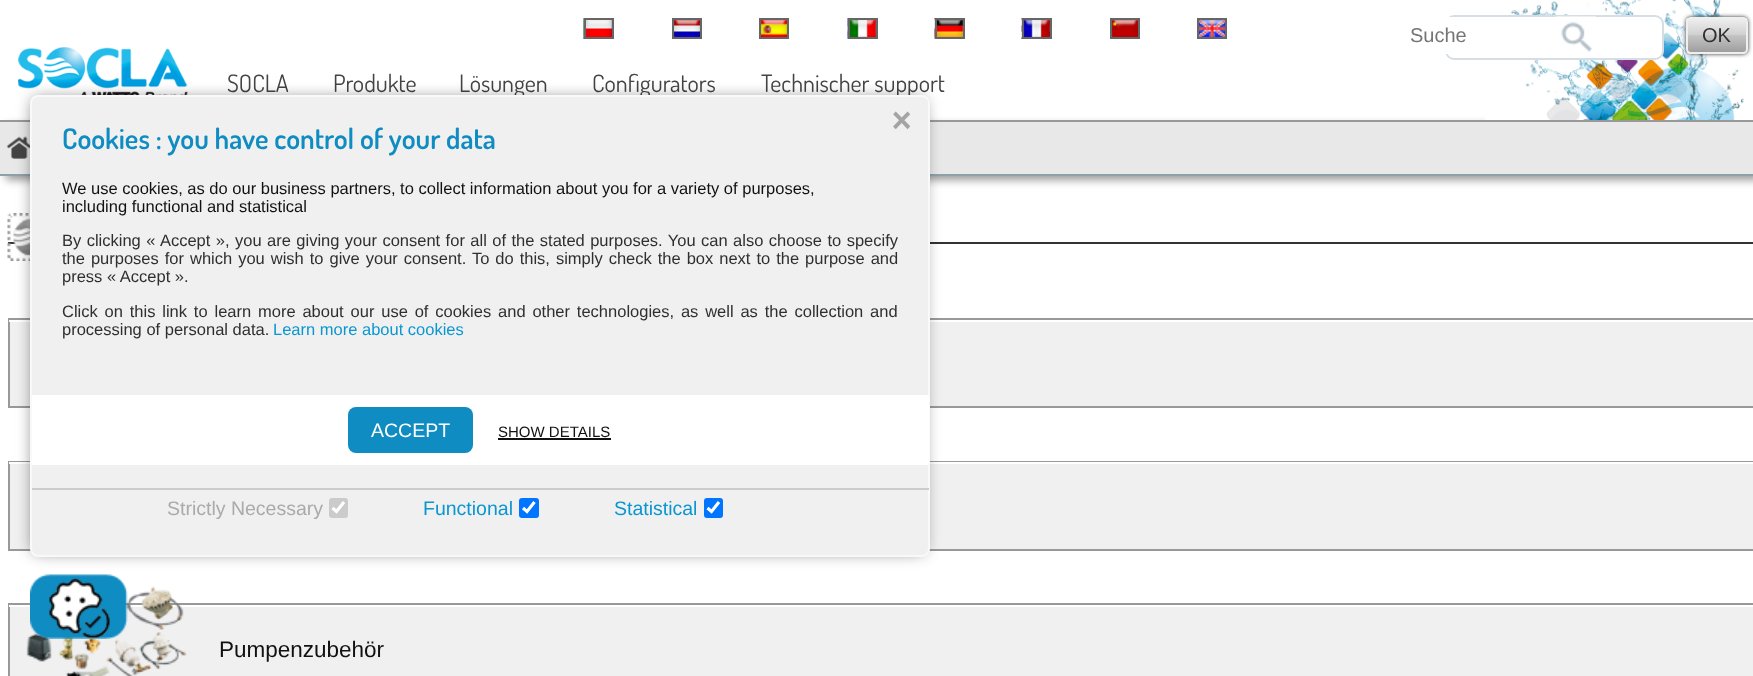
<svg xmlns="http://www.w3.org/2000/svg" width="1753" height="676">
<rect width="100%" height="100%" fill="#fff"/>
<rect x="6" y="125" width="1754" height="55" fill="#999" filter="blur(4px)"/>
<rect y="120" width="1753" height="2" fill="#999"/>
<image x="1485" y="0" width="268" height="120" href="media/1.png"/>
<image x="583" y="18" width="29" height="21" href="media/2.png"/>
<rect x="585" y="19" width="28" height="19" fill="none" stroke="#666" stroke-width="2"/>
<image x="674" y="20" width="26" height="17" href="media/3.png"/>
<rect x="673" y="19" width="28" height="19" fill="none" stroke="#666" stroke-width="2"/>
<image x="761" y="20" width="26" height="17" href="media/4.png"/>
<rect x="760" y="19" width="28" height="19" fill="none" stroke="#666" stroke-width="2"/>
<image x="847" y="18" width="29" height="21" href="media/5.png"/>
<rect x="849" y="19" width="28" height="19" fill="none" stroke="#666" stroke-width="2"/>
<image x="934" y="18" width="29" height="21" href="media/6.png"/>
<rect x="936" y="19" width="28" height="19" fill="none" stroke="#666" stroke-width="2"/>
<image x="1021" y="18" width="29" height="21" href="media/7.png"/>
<rect x="1023" y="19" width="28" height="19" fill="none" stroke="#666" stroke-width="2"/>
<image x="1112" y="20" width="26" height="17" href="media/8.png"/>
<rect x="1111" y="19" width="28" height="19" fill="none" stroke="#666" stroke-width="2"/>
<image x="1199" y="20" width="26" height="17" href="media/9.png"/>
<rect x="1198" y="19" width="28" height="19" fill="none" stroke="#666" stroke-width="2"/>
<rect x="1446" y="16" width="217" height="43" rx="8" fill="#fff" stroke="#d4dee4" stroke-width="2"/>
<image x="1555" y="16" width="41" height="36" href="media/10.png"/>
<rect x="1445" y="17" width="8" height="37" fill="#fff"/>
<text x="1410" y="42" style="font-family:Liberation Sans;font-size:20px;fill:#757575">Suche</text>
<rect x="1686" y="17" width="62" height="37" rx="5" fill="#333" filter="blur(2px)"/>
<image x="1686" y="16" width="62" height="38" href="media/11.png"/>
<rect x="1687" y="18" width="60" height="35" rx="4" fill="none" stroke="#efefef" stroke-width="2"/>
<text x="1702" y="42" style="font-family:Liberation Sans;font-size:20px;fill:#2f2f2f">OK</text>
<image x="18" y="47" width="170" height="48" href="media/12.png"/>
<text x="227" y="92" style="font-family:Dosis;font-size:24px;fill:#444">SOCLA</text>
<text x="333" y="92" style="font-family:Dosis;font-size:24px;fill:#444">Produkte</text>
<text x="459" y="92" style="font-family:Dosis;font-size:24px;fill:#444">Lösungen</text>
<text x="592" y="92" style="font-family:Dosis;font-size:24px;fill:#444">Configurators</text>
<text x="761" y="92" style="font-family:Dosis;font-size:24px;fill:#444">Technischer support</text>
<rect y="122" width="1753" height="52" fill="#e8e8e8"/>
<rect y="174" width="1753" height="2" fill="#8fa1a8"/>
<image x="6" y="136" width="24" height="23" href="media/14.png"/>
<rect x="8" y="242" width="1745" height="2" fill="#333"/>
<image x="7" y="213" width="23" height="48" href="media/15.png"/>
<rect x="10" y="322" width="1743" height="84" fill="#f0f0f0"/>
<rect x="9" y="319" width="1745" height="88" fill="none" stroke="#999" stroke-width="2"/>
<rect x="9" y="320" width="1" height="2" fill="#fff"/>
<rect x="10" y="464" width="1743" height="85" fill="#f0f0f0"/>
<rect x="9" y="462" width="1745" height="88" fill="none" stroke="#999" stroke-width="2"/>
<rect x="9" y="462" width="1744" height="2" fill="#fff"/>
<rect x="33" y="99" width="891" height="453" rx="3" fill="#00000087" filter="blur(8px)"/>
<rect x="31" y="96" width="898" height="460" rx="7" fill="#f0f0f0" stroke="#f9f9f9" stroke-width="2"/>
<text x="893" y="150" style="font-family:Liberation Sans;font-size:52px;font-weight:bold;fill:#a4a4a4">˟</text>
<text x="62" y="149" style="font-family:Dosis;font-size:28.5px;font-weight:600;fill:#0f8cc1">Cookies : you have control of your data</text>
<text x="62" y="194" style="font-family:Liberation Sans;font-size:16.5px;fill:#111">We use cookies, as do our business partners, to collect information about you for a variety of purposes,</text>
<text x="62" y="212" style="font-family:Liberation Sans;font-size:16.5px;fill:#111">including functional and statistical</text>
<text x="62" y="246" word-spacing="0.85" style="font-family:Liberation Sans;font-size:16.5px;fill:#2f2f2f">By clicking « Accept », you are giving your consent for all of the stated purposes. You can also choose to specify</text>
<text x="62" y="264" word-spacing="1.4" style="font-family:Liberation Sans;font-size:16.5px;fill:#2f2f2f">the purposes for which you wish to give your consent. To do this, simply check the box next to the purpose and</text>
<text x="62" y="282" style="font-family:Liberation Sans;font-size:16.5px;fill:#2f2f2f">press « Accept ».</text>
<text x="62" y="317" word-spacing="2.25" style="font-family:Liberation Sans;font-size:16.5px;fill:#2f2f2f">Click on this link to learn more about our use of cookies and other technologies, as well as the collection and</text>
<text x="62" y="335" style="font-family:Liberation Sans;font-size:16.5px;fill:#2f2f2f">processing of personal data.</text>
<text x="273" y="335" style="font-family:Liberation Sans;font-size:16.5px;fill:#0a96d1">Learn more about cookies</text>
<rect x="32" y="395" width="897" height="70" fill="#fff"/>
<rect x="348" y="407" width="125" height="46" rx="8" fill="#0f8cc1"/>
<text x="371" y="437" style="font-family:Liberation Sans;font-size:19.5px;fill:#fff">ACCEPT</text>
<text x="498" y="437" style="font-family:Liberation Sans;font-size:15px;fill:#111">SHOW DETAILS</text>
<rect x="498" y="438" width="113" height="2" fill="#111"/>
<rect x="32" y="488" width="897" height="2" fill="#ccc"/>
<text x="167" y="515" style="font-family:Liberation Sans;font-size:19.5px;fill:#aaa">Strictly Necessary</text>
<rect x="329" y="498" width="19" height="20" rx="3" fill="#cbcbcb"/>
<path d="M332.5 508l4 3.5l7.5-9.5" fill="none" stroke="#fff" stroke-width="3.1"/>
<text x="423" y="515" style="font-family:Liberation Sans;font-size:19.5px;fill:#0a96d1">Functional</text>
<rect x="519" y="498" width="20" height="20" rx="3" fill="#0075ff"/>
<path d="M523 508l4 3.5l7.5-9.5" fill="none" stroke="#fff" stroke-width="3.1"/>
<text x="614" y="515" style="font-family:Liberation Sans;font-size:19.5px;fill:#0a96d1">Statistical</text>
<rect x="704" y="498" width="19" height="20" rx="3" fill="#0075ff"/>
<path d="M707.5 508l4 3.5l7.5-9.5" fill="none" stroke="#fff" stroke-width="3.1"/>
<rect x="10" y="607" width="1743" height="69" fill="#f0f0f0"/>
<rect x="9" y="604" width="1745" height="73" fill="none" stroke="#999" stroke-width="2"/>
<image x="26" y="586" width="161" height="90" href="media/16.png"/>
<image x="30" y="574" width="98" height="65" href="media/13.png"/>
<rect x="9" y="605" width="1" height="2" fill="#fff"/>
<text x="219" y="657" style="font-family:Liberation Sans;font-size:22.5px;fill:#111">Pumpenzubehör</text>
</svg>
